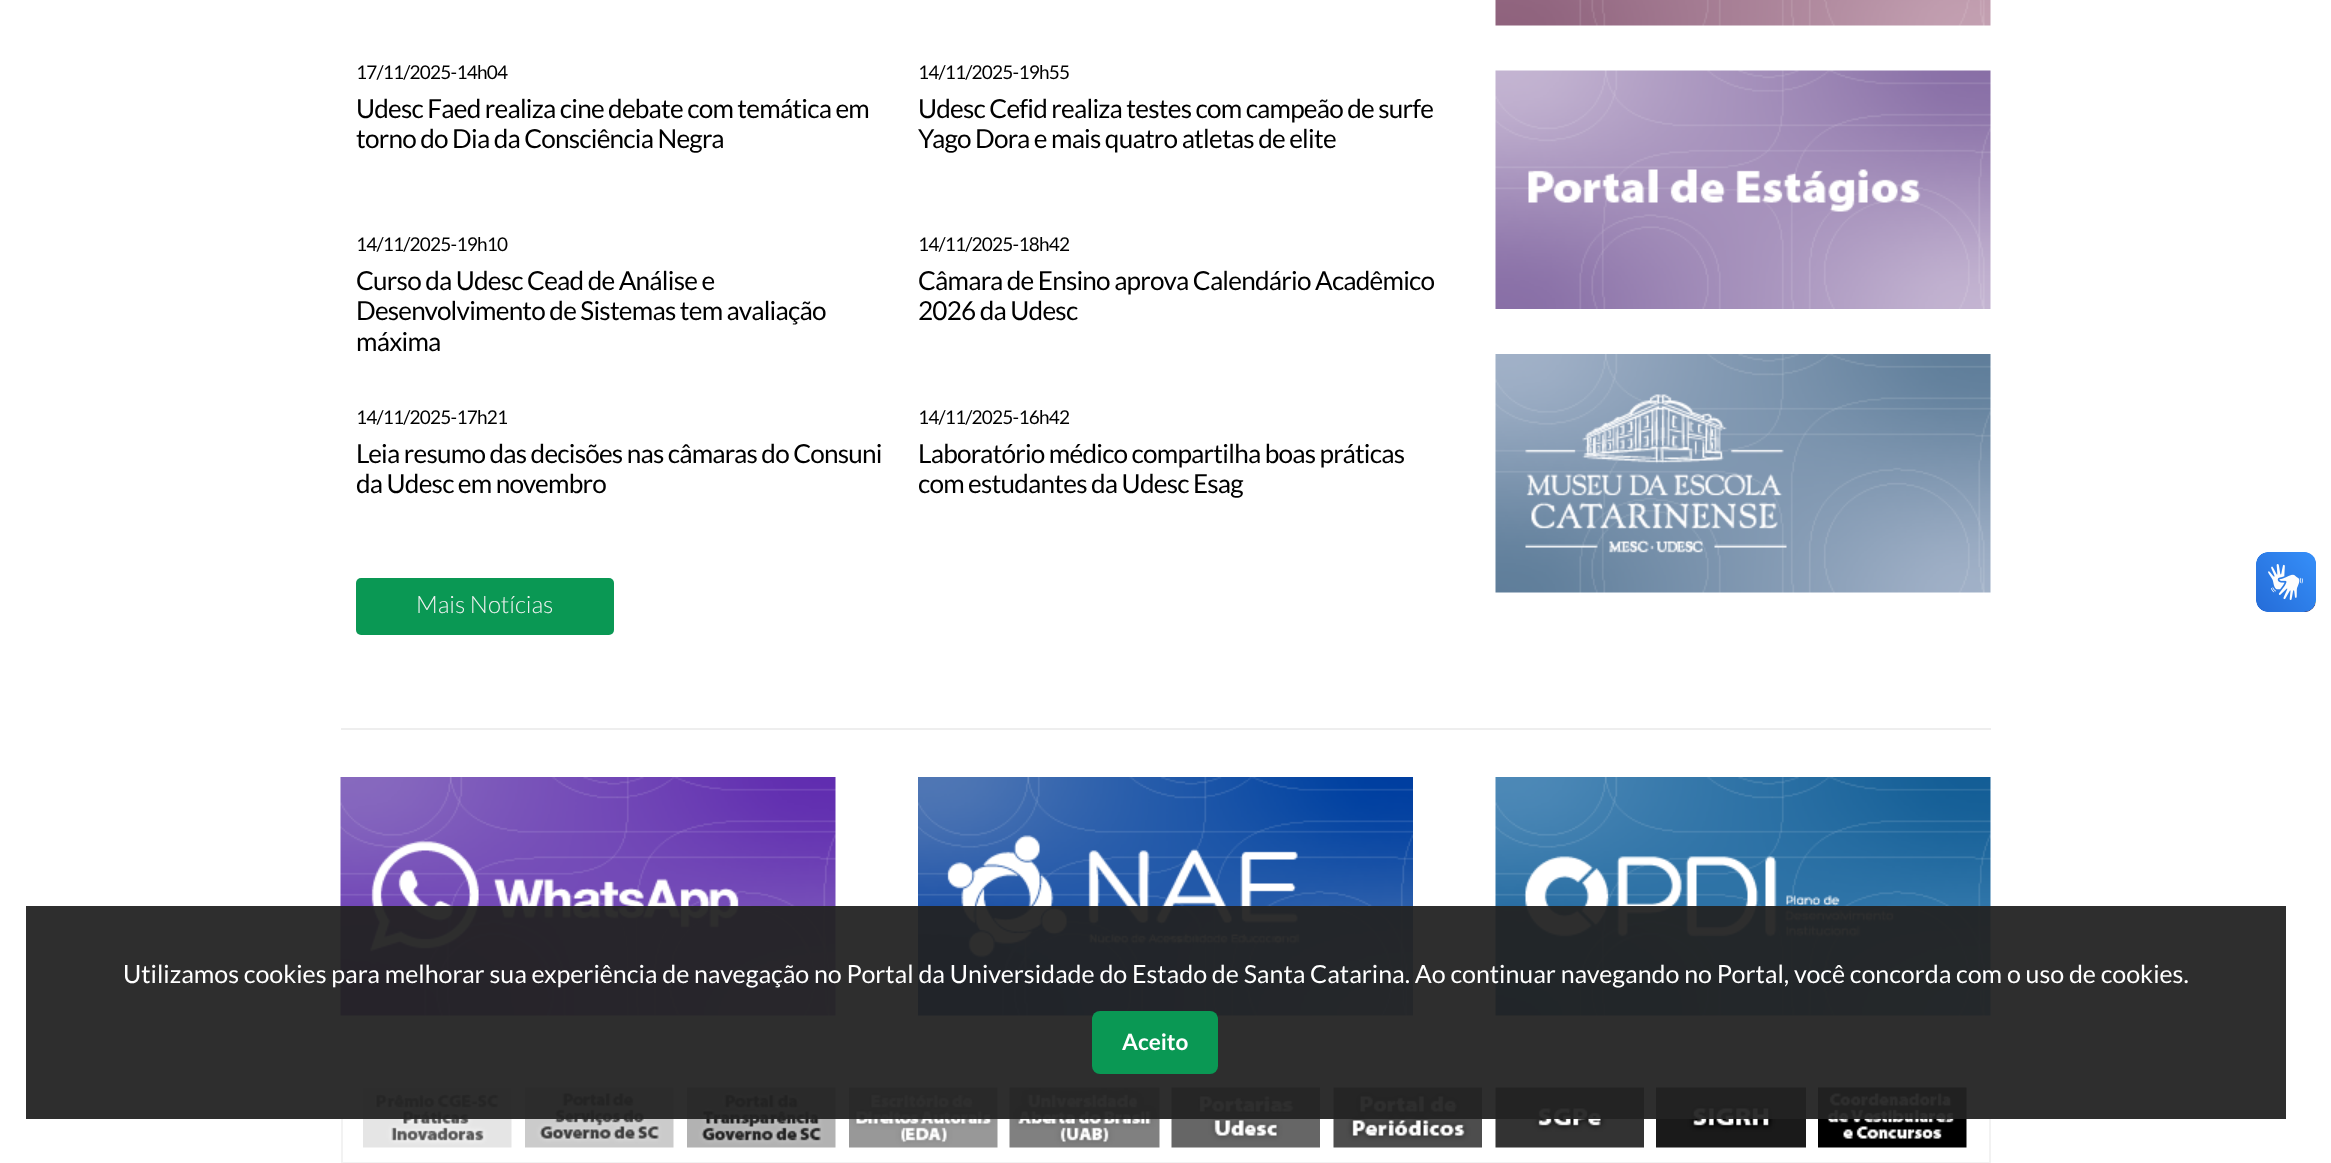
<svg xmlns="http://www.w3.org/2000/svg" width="2331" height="1163">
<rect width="100%" height="100%" fill="#fff"/>
<text x="356" y="79" style="font-family:Lato;font-size:18.25px;letter-spacing:-0.75px;fill:#000">17/11/2025-14h04</text>
<text x="356" y="118" style="font-family:Lato;font-size:25.1px;letter-spacing:-0.75px;fill:#000">Udesc Faed realiza cine debate com temática em</text>
<text x="356" y="148" style="font-family:Lato;font-size:25.1px;letter-spacing:-0.75px;fill:#000">torno do Dia da Consciência Negra</text>
<text x="918" y="79" style="font-family:Lato;font-size:18.25px;letter-spacing:-0.75px;fill:#000">14/11/2025-19h55</text>
<text x="918" y="118" style="font-family:Lato;font-size:25.1px;letter-spacing:-0.75px;fill:#000">Udesc Cefid realiza testes com campeão de surfe</text>
<text x="918" y="148" style="font-family:Lato;font-size:25.1px;letter-spacing:-0.75px;fill:#000">Yago Dora e mais quatro atletas de elite</text>
<text x="356" y="251" style="font-family:Lato;font-size:18.25px;letter-spacing:-0.75px;fill:#000">14/11/2025-19h10</text>
<text x="356" y="290" style="font-family:Lato;font-size:25.1px;letter-spacing:-0.75px;fill:#000">Curso da Udesc Cead de Análise e</text>
<text x="356" y="320" style="font-family:Lato;font-size:25.1px;letter-spacing:-0.75px;fill:#000">Desenvolvimento de Sistemas tem avaliação</text>
<text x="356" y="351" style="font-family:Lato;font-size:25.1px;letter-spacing:-0.75px;fill:#000">máxima</text>
<text x="918" y="251" style="font-family:Lato;font-size:18.25px;letter-spacing:-0.75px;fill:#000">14/11/2025-18h42</text>
<text x="918" y="290" style="font-family:Lato;font-size:25.1px;letter-spacing:-0.75px;fill:#000">Câmara de Ensino aprova Calendário Acadêmico</text>
<text x="918" y="320" style="font-family:Lato;font-size:25.1px;letter-spacing:-0.75px;fill:#000">2026 da Udesc</text>
<text x="356" y="424" style="font-family:Lato;font-size:18.25px;letter-spacing:-0.75px;fill:#000">14/11/2025-17h21</text>
<text x="356" y="463" style="font-family:Lato;font-size:25.1px;letter-spacing:-0.75px;fill:#000">Leia resumo das decisões nas câmaras do Consuni</text>
<text x="356" y="493" style="font-family:Lato;font-size:25.1px;letter-spacing:-0.75px;fill:#000">da Udesc em novembro</text>
<text x="918" y="424" style="font-family:Lato;font-size:18.25px;letter-spacing:-0.75px;fill:#000">14/11/2025-16h42</text>
<text x="918" y="463" style="font-family:Lato;font-size:25.1px;letter-spacing:-0.75px;fill:#000">Laboratório médico compartilha boas práticas</text>
<text x="918" y="493" style="font-family:Lato;font-size:25.1px;letter-spacing:-0.75px;fill:#000">com estudantes da Udesc Esag</text>
<rect x="356" y="578" width="258" height="57" rx="5" fill="#0a9854"/>
<text x="416" y="613" style="font-family:Lato;font-size:22.75px;font-weight:300;fill:#f2f2f2">Mais Notícias</text>
<image x="1495" y="0" width="496" height="26" href="media/1.png"/>
<image x="1495" y="70" width="496" height="239" href="media/2.png"/>
<image x="1495" y="354" width="496" height="239" href="media/3.png"/>
<rect x="341" y="728" width="1650" height="2" fill="#eee"/>
<image x="340" y="777" width="496" height="239" href="media/4.png"/>
<image x="918" y="777" width="495" height="239" href="media/5.png"/>
<image x="1495" y="777" width="496" height="239" href="media/6.png"/>
<rect x="342" y="1065" width="1648" height="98" fill="none" stroke="#f2f2f2" stroke-width="2"/>
<image x="363" y="1087" width="149" height="61" href="media/7.png"/>
<image x="525" y="1087" width="149" height="61" href="media/8.png"/>
<image x="687" y="1087" width="149" height="61" href="media/9.png"/>
<image x="849" y="1087" width="149" height="61" href="media/10.png"/>
<image x="1009" y="1087" width="151" height="61" href="media/11.png"/>
<image x="1171" y="1087" width="149" height="61" href="media/12.png"/>
<image x="1333" y="1087" width="149" height="61" href="media/13.png"/>
<image x="1495" y="1087" width="149" height="61" href="media/14.png"/>
<image x="1656" y="1087" width="150" height="61" href="media/15.png"/>
<image x="1818" y="1087" width="149" height="61" href="media/16.png"/>
<image x="2256" y="552" width="60" height="60" href="media/17.png"/>
<image x="2256" y="552" width="60" height="60" href="media/18.png"/>
<rect x="26" y="906" width="2260" height="213" fill="#232323f2"/>
<text x="123" y="983" style="font-family:Lato;font-size:24px;fill:#fff">Utilizamos cookies para melhorar sua experiência de navegação no Portal da Universidade do Estado de Santa Catarina. Ao continuar navegando no Portal, você concorda com o uso de cookies.</text>
<rect x="1092" y="1011" width="126" height="63" rx="8" fill="#0a9854"/>
<text x="1122" y="1050" style="font-family:Lato;font-size:22.5px;font-weight:bold;fill:#fff">Aceito</text>
</svg>
